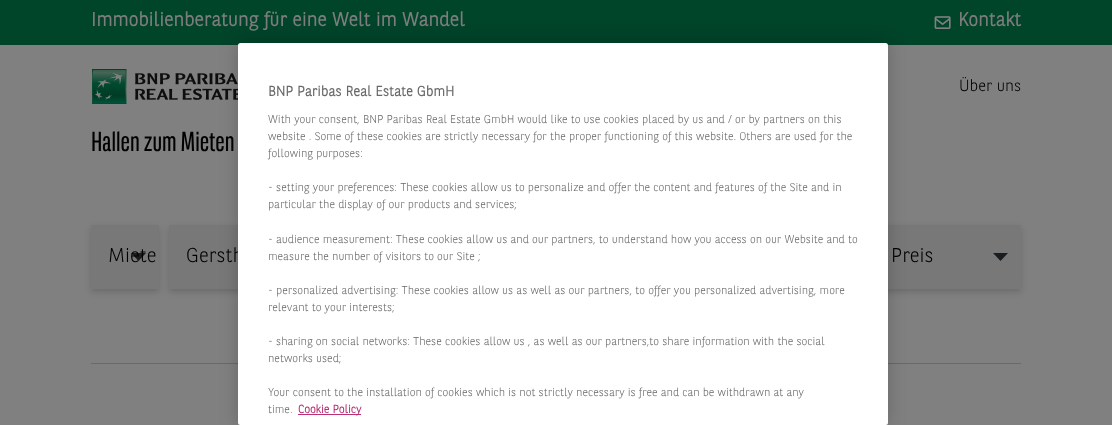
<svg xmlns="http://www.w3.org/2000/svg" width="1112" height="425">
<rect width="100%" height="100%" fill="#808080"/>
<rect width="1112" height="45" fill="#00442a"/>
<text x="91" y="26" style="font-family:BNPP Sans;font-size:19.25px;font-weight:bold;fill:#7c7d7d">Immobilienberatung für eine Welt im Wandel</text>
<image x="934" y="16" width="17" height="13" href="media/1.png"/>
<text x="958" y="26" style="font-family:BNPP Sans;font-size:19.25px;font-weight:bold;fill:#7c7d7d">Kontakt</text>
<image x="92" y="69" width="146" height="35" href="media/2.png"/>
<text x="959" y="91" style="font-family:BNPP Sans;font-size:16px;font-weight:300;fill:#000">Über uns</text>
<text x="91" y="151" style="font-family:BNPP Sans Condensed;font-size:27.5px;fill:#000">Hallen zum Mieten</text>
<rect x="91" y="228" width="68" height="64" fill="#00000029" filter="blur(3px)"/>
<rect x="91" y="225" width="68" height="64" fill="#787878"/>
<path d="M138.5 261l-7.5-8h15z" fill="#1a1d20"/>
<text x="108" y="262" style="font-family:BNPP Sans;font-size:20px;font-weight:300;fill:#000">Miete</text>
<rect x="169" y="228" width="304" height="64" fill="#00000029" filter="blur(3px)"/>
<rect x="169" y="225" width="69" height="64" fill="#787878"/>
<text x="186" y="262" style="font-family:BNPP Sans;font-size:20px;font-weight:300;fill:#000">Gersth</text>
<rect x="874" y="228" width="147" height="64" fill="#00000029" filter="blur(3px)"/>
<rect x="888" y="225" width="133" height="64" fill="#787878"/>
<path d="M1000.5 261l-7.5-8h15z" fill="#1a1d20"/>
<text x="891" y="262" style="font-family:BNPP Sans;font-size:20px;font-weight:300;fill:#000">Preis</text>
<rect x="91" y="363" width="147" height="1" fill="#696966"/>
<rect x="888" y="363" width="133" height="1" fill="#696966"/>
<rect x="238" y="43" width="650" height="382" rx="2.5" fill="#00000033" filter="blur(9px)"/>
<rect x="238" y="43" width="650" height="382" rx="2.5" fill="#fff"/>
<text x="268" y="96" style="font-family:BNPP Sans;font-size:14px;font-weight:bold;fill:#696969">BNP Paribas Real Estate GbmH</text>
<text x="268" y="123" style="font-family:BNPP Sans;font-size:11.38px;font-weight:300;fill:#696969">With your consent, BNP Paribas Real Estate GmbH would like to use cookies placed by us and / or by partners on this</text>
<text x="268" y="140" style="font-family:BNPP Sans;font-size:11.38px;font-weight:300;fill:#696969">website . Some of these cookies are strictly necessary for the proper functioning of this website. Others are used for the</text>
<text x="268" y="157" style="font-family:BNPP Sans;font-size:11.38px;font-weight:300;fill:#696969">following purposes:</text>
<text x="268" y="191" style="font-family:BNPP Sans;font-size:11.38px;font-weight:300;fill:#696969">- setting your preferences: These cookies allow us to personalize and offer the content and features of the Site and in</text>
<text x="268" y="208" style="font-family:BNPP Sans;font-size:11.38px;font-weight:300;fill:#696969">particular the display of our products and services;</text>
<text x="268" y="243" style="font-family:BNPP Sans;font-size:11.38px;font-weight:300;fill:#696969">- audience measurement: These cookies allow us and our partners, to understand how you access on our Website and to</text>
<text x="268" y="260" style="font-family:BNPP Sans;font-size:11.38px;font-weight:300;fill:#696969">measure the number of visitors to our Site ;</text>
<text x="268" y="294" style="font-family:BNPP Sans;font-size:11.38px;font-weight:300;fill:#696969">- personalized advertising: These cookies allow us as well as our partners, to offer you personalized advertising, more</text>
<text x="268" y="311" style="font-family:BNPP Sans;font-size:11.38px;font-weight:300;fill:#696969">relevant to your interests;</text>
<text x="268" y="345" style="font-family:BNPP Sans;font-size:11.38px;font-weight:300;fill:#696969">- sharing on social networks: These cookies allow us , as well as our partners,to share information with the social</text>
<text x="268" y="362" style="font-family:BNPP Sans;font-size:11.38px;font-weight:300;fill:#696969">networks used;</text>
<text x="268" y="396" style="font-family:BNPP Sans;font-size:11.38px;font-weight:300;fill:#696969">Your consent to the installation of cookies which is not strictly necessary is free and can be withdrawn at any</text>
<text x="268" y="413" style="font-family:BNPP Sans;font-size:11.38px;font-weight:300;fill:#696969">time.</text>
<rect x="298" y="414" width="63" height="1" fill="#ba3075"/>
<text x="298" y="413" style="font-family:BNPP Sans;font-size:11.38px;font-weight:bold;fill:#ba3075">Cookie Policy</text>
</svg>
